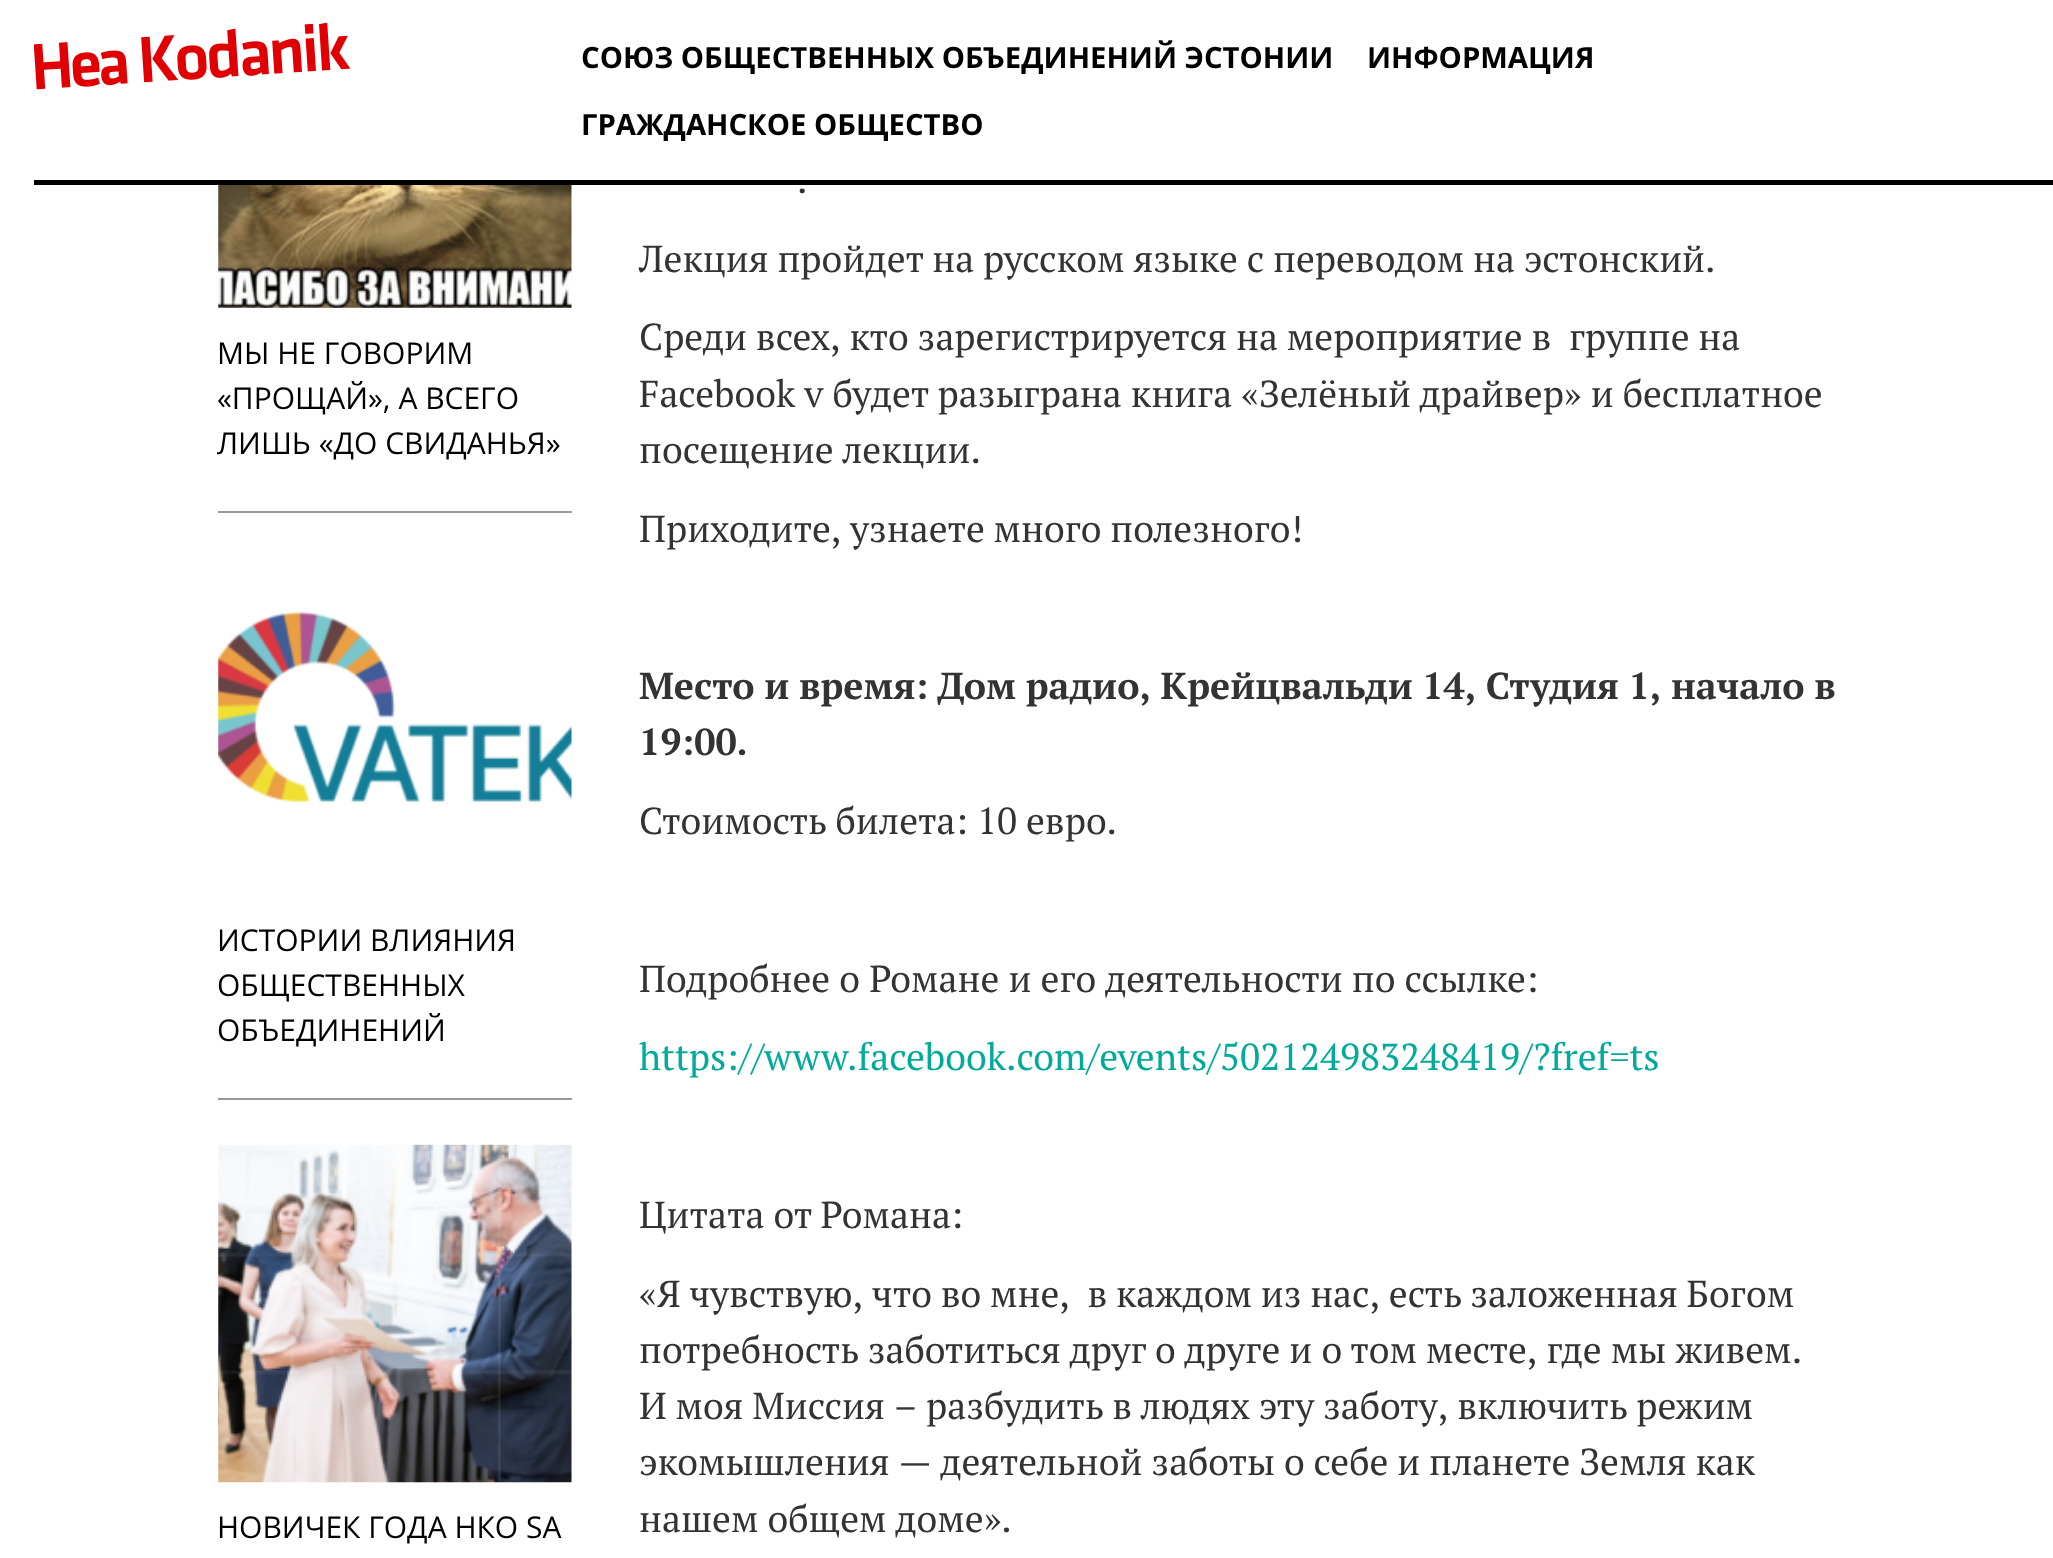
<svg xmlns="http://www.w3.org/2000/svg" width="2053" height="1558">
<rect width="100%" height="100%" fill="#fff"/>
<rect x="34" y="180" width="2019" height="5" fill="#000"/>
<image x="34" y="23" width="317" height="67" href="media/1.png"/>
<text x="581" y="68" style="font-family:Open Sans;font-size:29.25px;font-weight:bold;fill:#000">СОЮЗ ОБЩЕСТВЕННЫХ ОБЪЕДИНЕНИЙ ЭСТОНИИ</text>
<text x="1367" y="68" style="font-family:Open Sans;font-size:29.25px;font-weight:bold;fill:#000">ИНФОРМАЦИЯ</text>
<text x="581" y="135" style="font-family:Open Sans;font-size:29.25px;font-weight:bold;fill:#000">ГРАЖДАНСКОE ОБЩЕСТВO</text>
<rect x="218" y="511" width="354" height="2" fill="#999"/>
<image x="218" y="185" width="354" height="123" href="media/2.png"/>
<text x="217" y="364" style="font-family:Open Sans;font-size:30px;fill:#000">МЫ НЕ ГОВОРИМ</text>
<text x="217" y="409" style="font-family:Open Sans;font-size:30px;fill:#000">«ПРОЩАЙ», А ВСЕГО</text>
<text x="217" y="454" style="font-family:Open Sans;font-size:30px;fill:#000">ЛИШЬ «ДО СВИДАНЬЯ»</text>
<rect x="218" y="1098" width="354" height="2" fill="#999"/>
<image x="218" y="611" width="354" height="193" href="media/3.png"/>
<text x="217" y="951" style="font-family:Open Sans;font-size:30px;fill:#000">ИСТОРИИ ВЛИЯНИЯ</text>
<text x="217" y="996" style="font-family:Open Sans;font-size:30px;fill:#000">ОБЩЕСТВЕННЫХ</text>
<text x="217" y="1041" style="font-family:Open Sans;font-size:30px;fill:#000">ОБЪЕДИНЕНИЙ</text>
<image x="218" y="1144" width="354" height="339" href="media/4.png"/>
<text x="217" y="1538" style="font-family:Open Sans;font-size:30px;fill:#000">НОВИЧЕК ГОДА НКО SA</text>
<text x="797" y="193" style="font-family:PT Serif;font-size:37.5px;fill:#333">.</text>
<text x="639" y="272" word-spacing="-0.25" style="font-family:PT Serif;font-size:37.5px;fill:#333">Лекция пройдет на русском языке с переводом на эстонский.</text>
<text x="639" y="350" word-spacing="-0.25" style="font-family:PT Serif;font-size:37.5px;fill:#333" xml:space="preserve">Среди всех, кто зарегистрируется на мероприятие в  группе на</text>
<text x="639" y="407" style="font-family:PT Serif;font-size:37.5px;fill:#333">Facebook v будет разыграна книга «Зелёный драйвер» и бесплатное</text>
<text x="639" y="463" style="font-family:PT Serif;font-size:37.5px;fill:#333">посещение лекции.</text>
<text x="639" y="542" word-spacing="-0.5" style="font-family:PT Serif;font-size:37.5px;fill:#333">Приходите, узнаете много полезного!</text>
<text x="639" y="699" word-spacing="-0.5" style="font-family:PT Serif;font-size:37.5px;font-weight:bold;fill:#333">Место и время: Дом радио, Крейцвальди 14, Студия 1, начало в</text>
<text x="639" y="755" style="font-family:PT Serif;font-size:37.5px;font-weight:bold;fill:#333">19:00.</text>
<text x="639" y="834" style="font-family:PT Serif;font-size:37.5px;fill:#333">Стоимость билета: 10 евро.</text>
<text x="639" y="992" style="font-family:PT Serif;font-size:37.5px;fill:#333">Подробнее о Романе и его деятельности по ссылке:</text>
<text x="639" y="1070" style="font-family:PT Serif;font-size:37.5px;fill:#00ab9b">https://www.facebook.com/events/502124983248419/?fref=ts</text>
<text x="639" y="1228" style="font-family:PT Serif;font-size:37.5px;fill:#333">Цитата от Романа:</text>
<text x="639" y="1307" word-spacing="-0.4" style="font-family:PT Serif;font-size:37.5px;fill:#333" xml:space="preserve">«Я чувствую, что во мне,  в каждом из нас, есть заложенная Богом</text>
<text x="639" y="1363" style="font-family:PT Serif;font-size:37.5px;fill:#333">потребность заботиться друг о друге и о том месте, где мы живем.</text>
<text x="639" y="1419" word-spacing="-0.25" style="font-family:PT Serif;font-size:37.5px;fill:#333">И моя Миссия – разбудить в людях эту заботу, включить режим</text>
<text x="639" y="1475" word-spacing="-0.25" style="font-family:PT Serif;font-size:37.5px;fill:#333">экомышления — деятельной заботы о себе и планете Земля как</text>
<text x="639" y="1532" style="font-family:PT Serif;font-size:37.5px;fill:#333">нашем общем доме».</text>
</svg>
